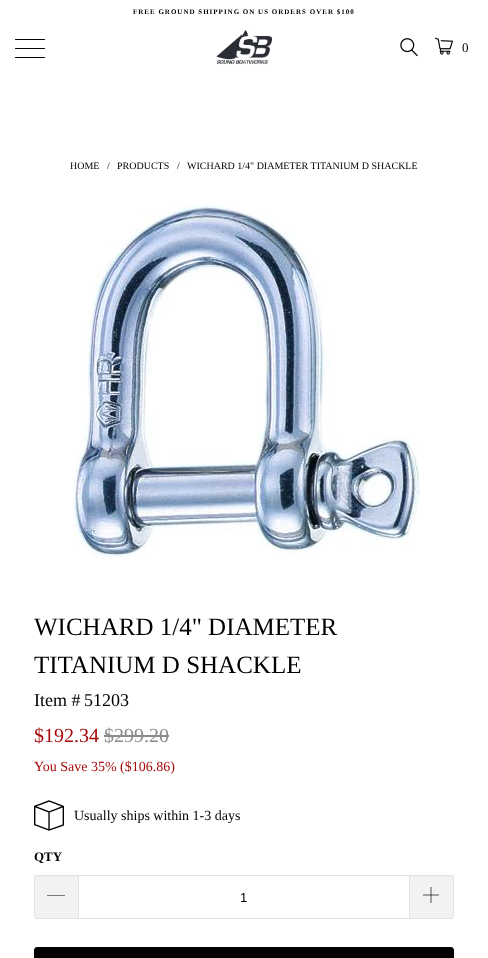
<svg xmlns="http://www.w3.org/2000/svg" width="488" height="958">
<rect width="100%" height="100%" fill="#fff"/>
<text x="133" y="14" style="font-family:Liberation Serif;font-size:7px;font-weight:bold;letter-spacing:1px;fill:#000">FREE GROUND SHIPPING ON US ORDERS OVER $100</text>
<rect x="15" y="39" width="30" height="1" rx="0.5" fill="#000"/>
<rect x="15" y="48" width="30" height="1" rx="0.5" fill="#000"/>
<rect x="15" y="57" width="30" height="1" rx="0.5" fill="#000"/>
<image x="216" y="30" width="56" height="35" href="media/1.png"/>
<image x="400" y="38" width="18" height="19" href="media/2.png"/>
<image x="435" y="37" width="18" height="18" href="media/3.png"/>
<text x="462" y="52" style="font-family:Liberation Serif;font-size:13px;letter-spacing:1px;fill:#000">0</text>
<text x="70" y="169" style="font-family:Liberation Serif;font-size:10px;fill:#000">HOME</text>
<text x="107" y="169" style="font-family:Liberation Serif;font-size:10px;fill:#000">/</text>
<text x="117" y="169" style="font-family:Liberation Serif;font-size:10px;fill:#000">PRODUCTS</text>
<text x="177" y="169" style="font-family:Liberation Serif;font-size:10px;fill:#000">/</text>
<text x="187" y="169" style="font-family:Liberation Serif;font-size:10px;fill:#000">WICHARD 1/4" DIAMETER TITANIUM D SHACKLE</text>
<image x="74" y="203" width="346" height="356" href="media/4.png"/>
<text x="34" y="635" style="font-family:Liberation Serif;font-size:25px;fill:#000">WICHARD 1/4" DIAMETER</text>
<text x="34" y="673" style="font-family:Liberation Serif;font-size:25px;fill:#000">TITANIUM D SHACKLE</text>
<text x="34" y="706" style="font-family:Liberation Serif;font-size:18px;fill:#000">Item #</text>
<text x="84" y="706" style="font-family:Liberation Serif;font-size:18px;fill:#000">51203</text>
<text x="34" y="742" style="font-family:Liberation Serif;font-size:20px;fill:#a70b0b">$192.34</text>
<text x="104" y="742" style="font-family:Liberation Serif;font-size:20px;fill:#8c8b8b">$299.20</text>
<rect x="104" y="735" width="65" height="2" fill="#8c8b8b"/>
<text x="34" y="771" style="font-family:Liberation Serif;font-size:14px;fill:#a70b0b">You Save 35% ($106.86)</text>
<image x="34" y="800" width="30" height="31" href="media/5.png"/>
<text x="74" y="820" style="font-family:Liberation Serif;font-size:14px;fill:#000">Usually ships within 1-3 days</text>
<text x="34" y="861" style="font-family:Liberation Serif;font-size:13px;font-weight:bold;fill:#000">QTY</text>
<path d="M37 875h41v44h-41c-1.5 0-3-1.5-3-3v-38c0-1.5 1.5-3 3-3z" fill="#f2f2f2"/>
<path d="M37 875h41v44h-41c-2 0-3-1-3-3v-38c0-2 1-3 3-3zm0 1h41v42h-41c-1 0-2-1-2-2v-38c0-1 1-2 2-2z" fill="#e2e2e2" fill-rule="evenodd"/>
<path d="M47 895h18v.5h-18z" fill="#000"/>
<rect x="78.5" y="875.5" width="331" height="43" fill="none" stroke="#e2e2e2"/>
<text x="240" y="902" style="font-family:Liberation Sans;font-size:13px;fill:#000">1</text>
<path d="M410 875h41c1.5 0 3 1.5 3 3v38c0 1.5-1.5 3-3 3h-41z" fill="#f2f2f2"/>
<path d="M410 875h41c2 0 3 1 3 3v38c0 2-1 3-3 3h-41zm0 1h41c1 0 2 1 2 2v38c0 1-1 2-2 2h-41z" fill="#e2e2e2" fill-rule="evenodd"/>
<image x="423" y="887" width="16" height="16" href="media/6.png"/>
<rect x="34.5" y="947.5" width="419" height="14" rx="2.5" fill="#000" stroke="#000"/>
</svg>
